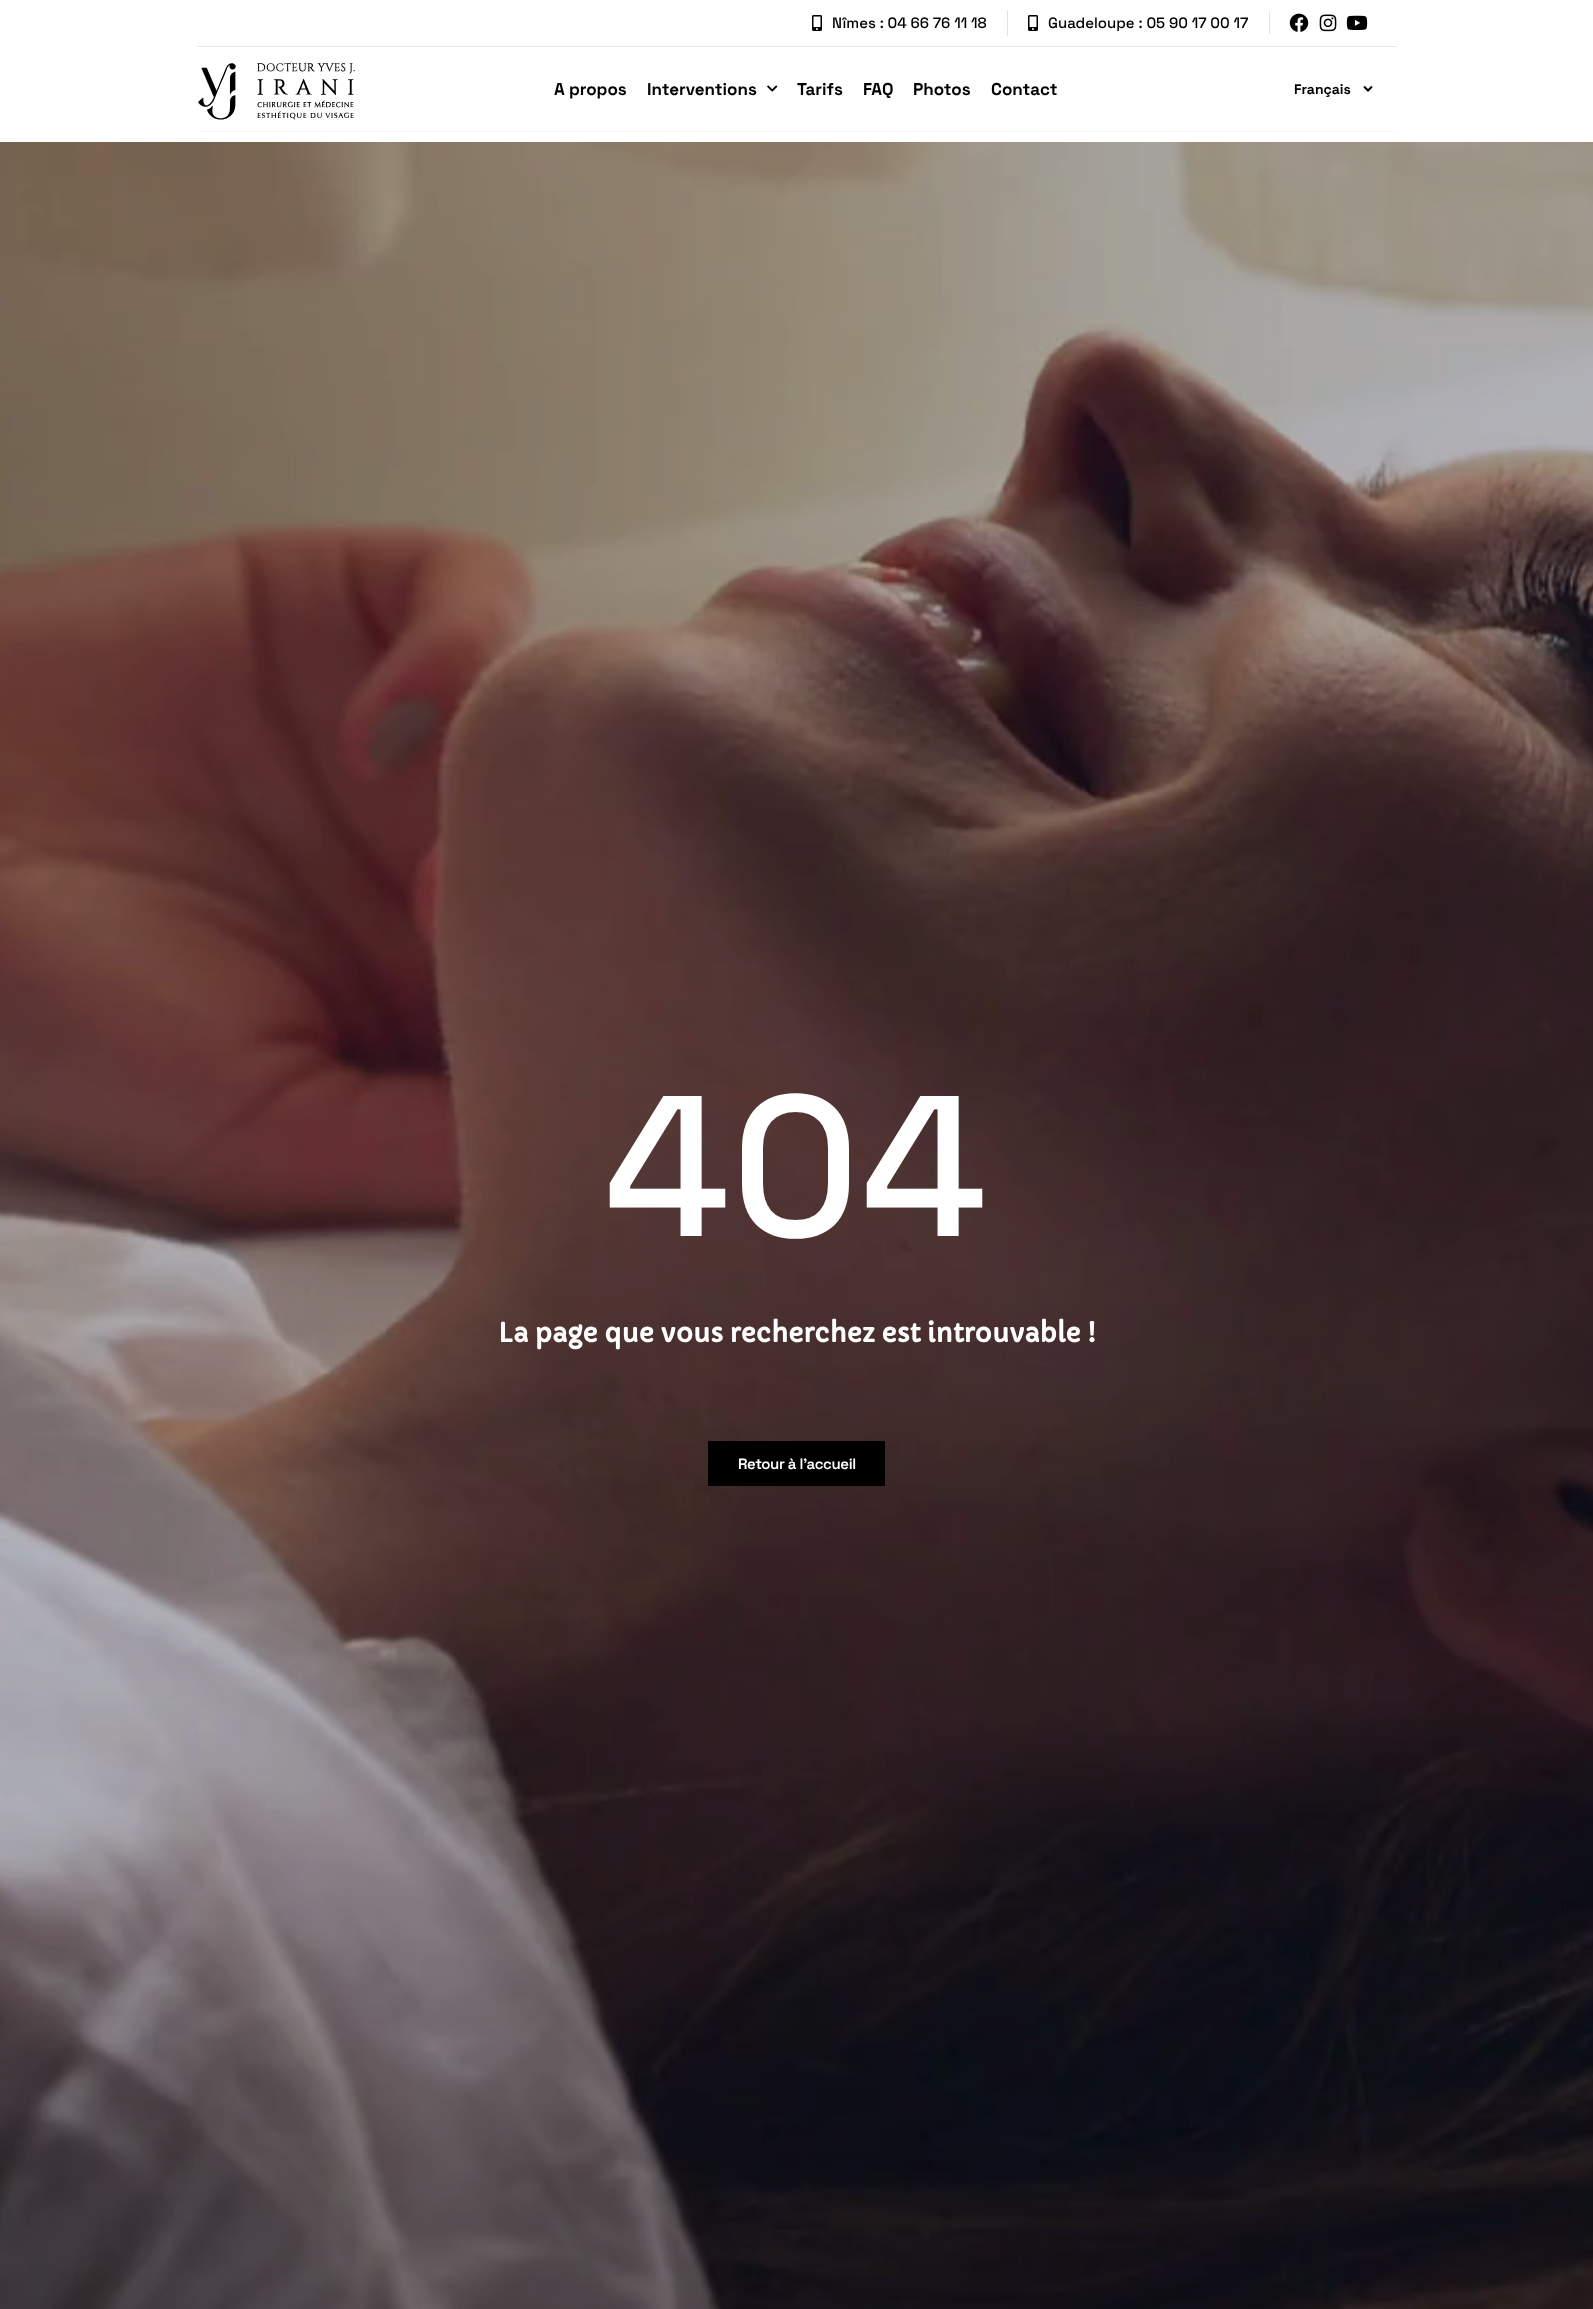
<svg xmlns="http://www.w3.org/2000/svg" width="1593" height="2309">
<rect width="100%" height="100%" fill="#fff"/>
<rect x="197" y="46" width="1200" height="1" fill="#e8e8e8"/>
<image x="812" y="15" width="10" height="16" href="media/1.png"/>
<text x="832" y="28" style="font-family:Space Grotesk;font-size:15px;font-weight:500;fill:#000">Nîmes : 04 66 76 11 18</text>
<rect x="1007" y="10" width="1" height="26" fill="#e3e3e3"/>
<image x="1028" y="15" width="10" height="16" href="media/1.png"/>
<text x="1048" y="28" style="font-family:Space Grotesk;font-size:15px;font-weight:500;fill:#000">Guadeloupe : 05 90 17 00 17</text>
<rect x="1269" y="11" width="1" height="23" fill="#e3e3e3"/>
<image x="1289" y="13" width="20" height="19" href="media/2.png"/>
<image x="1319" y="14" width="18" height="18" href="media/3.png"/>
<image x="1346" y="15" width="22" height="15" href="media/4.png"/>
<rect x="197" y="131" width="1200" height="1" fill="#fff5ef"/>
<image x="198" y="63" width="157" height="57" href="media/5.png"/>
<text x="554" y="95" style="font-family:Space Grotesk;font-size:17px;font-weight:bold;fill:#000">A propos</text>
<text x="647" y="95" style="font-family:Space Grotesk;font-size:17px;font-weight:bold;fill:#000">Interventions</text>
<image x="767" y="85" width="11" height="7" href="media/6.png"/>
<text x="797" y="95" style="font-family:Space Grotesk;font-size:17px;font-weight:bold;fill:#000">Tarifs</text>
<text x="863" y="95" style="font-family:Space Grotesk;font-size:17px;font-weight:bold;fill:#000">FAQ</text>
<text x="913" y="95" style="font-family:Space Grotesk;font-size:17px;font-weight:bold;fill:#000">Photos</text>
<text x="991" y="95" style="font-family:Space Grotesk;font-size:17px;font-weight:bold;fill:#000">Contact</text>
<path d="M1364 86.5l4 4l4-4" fill="none" stroke="#000" stroke-width="2"/>
<text x="1294" y="94" style="font-family:Space Grotesk;font-size:14px;font-weight:bold;fill:#000">Français</text>
<image x="0" y="142" width="1593" height="2167" href="media/7.png"/>
<text x="604" y="1236" style="font-family:Space Grotesk;font-size:200px;font-weight:500;letter-spacing:1px;fill:#fff">404</text>
<text x="498" y="1342" style="font-family:Capriola;font-size:26px;font-weight:bold;fill:#fff">La page que vous recherchez est introuvable !</text>
<rect x="708" y="1441" width="177" height="45" fill="#000"/>
<text x="738" y="1469" style="font-family:Space Grotesk;font-size:15px;font-weight:600;letter-spacing:-0.4px;fill:#fff">Retour à l'accueil</text>
</svg>
